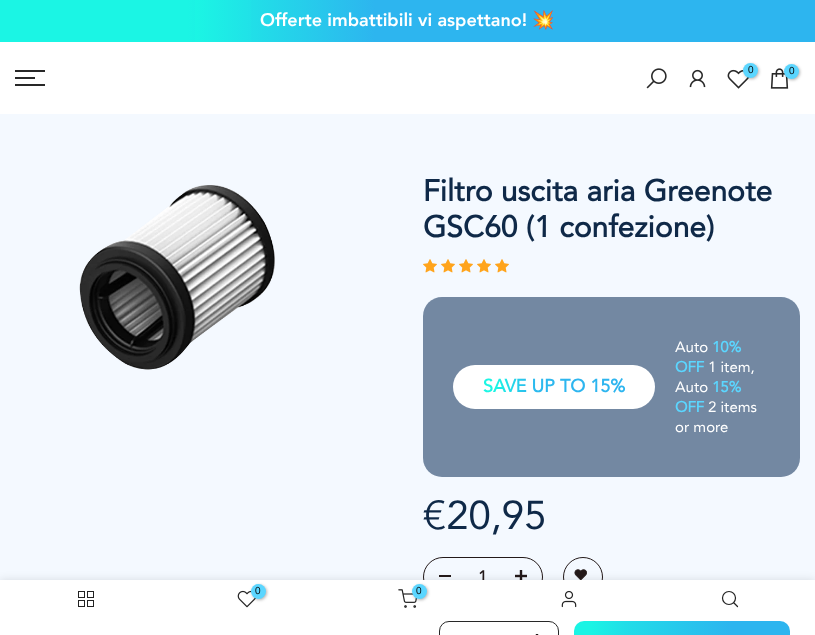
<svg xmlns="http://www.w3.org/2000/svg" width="815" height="635">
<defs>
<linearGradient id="g1" gradientUnits="userSpaceOnUse" x1="483" y1="386" x2="625" y2="386"><stop offset="0.09" stop-color="#1bf5e4"/><stop offset="0.32" stop-color="#2bbbee"/><stop offset="0.63" stop-color="#2db5ef"/></linearGradient>
<linearGradient id="g2" gradientUnits="userSpaceOnUse" x1="0" y1="21" x2="815" y2="21"><stop offset="0.23" stop-color="#1bf5e4"/><stop offset="0.46" stop-color="#2db5ef"/><stop offset="0.61" stop-color="#2db5ef"/></linearGradient>
<linearGradient id="g3" gradientUnits="userSpaceOnUse" x1="15" y1="21" x2="800" y2="21"><stop offset="0.23" stop-color="#1bf5e4"/><stop offset="0.46" stop-color="#2db5ef"/><stop offset="0.61" stop-color="#2db5ef"/></linearGradient>
<linearGradient id="g4" gradientUnits="userSpaceOnUse" x1="574" y1="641" x2="790" y2="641"><stop offset="0.08" stop-color="#1af4e4"/><stop offset="0.24" stop-color="#21dde8"/><stop offset="0.5" stop-color="#27c7ec"/><stop offset="0.73" stop-color="#2db5ef"/></linearGradient>
</defs>
<rect width="100%" height="100%" fill="#f4f9ff"/>
<rect width="815" height="42" fill="url(#g2)"/>
<rect x="195" width="56" height="42" fill="url(#g3)"/>
<text x="260" y="26" style="font-family:Avenir;font-size:18px;font-weight:900;fill:#fff">Offerte imbattibili vi aspettano!</text>
<text x="532" y="26" style="font-family:Noto Color Emoji;font-size:18px;fill:#fff">💥</text>
<rect y="42" width="815" height="72" fill="#fff"/>
<rect x="15" y="70" width="30" height="2" fill="#282828"/>
<rect x="15" y="77" width="20" height="2" fill="#282828"/>
<rect x="15" y="84" width="30" height="2" fill="#282828"/>
<image x="646" y="68" width="21" height="21" href="media/1.png"/>
<image x="689" y="69" width="17" height="19" href="media/2.png"/>
<image x="727" y="69" width="23" height="20" href="media/3.png"/>
<rect x="744" y="64" width="15" height="15" rx="7.5" fill="#0000004d" filter="blur(1.5px)"/>
<circle cx="750.5" cy="70.5" r="7.5" fill="#5bd6ff"/>
<text x="748" y="73" style="font-family:Avenir;font-size:10px;fill:#000">0</text>
<image x="770" y="68" width="19" height="21" href="media/4.png"/>
<rect x="785" y="65" width="15" height="15" rx="7.5" fill="#0000004d" filter="blur(1.5px)"/>
<circle cx="791.5" cy="71.5" r="7.5" fill="#5bd6ff"/>
<text x="789" y="74" style="font-family:Avenir;font-size:10px;fill:#000">0</text>
<image x="79" y="185" width="196" height="185" href="media/5.png"/>
<text x="423" y="201" style="font-family:Avenir;font-size:30px;font-weight:bold;fill:#0f2948">Filtro uscita aria Greenote</text>
<text x="423" y="237" style="font-family:Avenir;font-size:30px;font-weight:bold;fill:#0f2948">GSC60 (1 confezione)</text>
<image x="423" y="259" width="14" height="14" href="media/6.png"/>
<image x="441" y="259" width="14" height="14" href="media/6.png"/>
<image x="459" y="259" width="14" height="14" href="media/6.png"/>
<image x="477" y="259" width="14" height="14" href="media/6.png"/>
<image x="495" y="259" width="14" height="14" href="media/6.png"/>
<rect x="423" y="297" width="377" height="180" rx="19" fill="#7388a2"/>
<rect x="453" y="365" width="202" height="44" rx="22" fill="#fff"/>
<text x="483" y="392" style="font-family:Avenir;font-size:18px;font-weight:bold;fill:url(#g1)">SAVE UP TO 15%</text>
<text x="675" y="352" style="font-family:Avenir;font-size:15px;fill:#fff">Auto</text>
<text x="712" y="352" style="font-family:Avenir;font-size:15px;font-weight:bold;fill:#5bd6ff">10%</text>
<text x="675" y="372" style="font-family:Avenir;font-size:15px;font-weight:bold;fill:#5bd6ff">OFF</text>
<text x="708" y="372" style="font-family:Avenir;font-size:15px;fill:#fff">1 item,</text>
<text x="675" y="392" style="font-family:Avenir;font-size:15px;fill:#fff">Auto</text>
<text x="712" y="392" style="font-family:Avenir;font-size:15px;font-weight:bold;fill:#5bd6ff">15%</text>
<text x="675" y="412" style="font-family:Avenir;font-size:15px;font-weight:bold;fill:#5bd6ff">OFF</text>
<text x="708" y="412" style="font-family:Avenir;font-size:15px;fill:#fff">2 items</text>
<text x="675" y="432" style="font-family:Avenir;font-size:15px;fill:#fff">or more</text>
<text x="423" y="529" style="font-family:Avenir;font-size:40px;fill:#0f2948">€20,95</text>
<rect x="423.5" y="557.5" width="119" height="39" rx="19.5" fill="none" stroke="#231919"/>
<rect x="439" y="575" width="12" height="2" fill="#231919"/>
<text x="478" y="582" style="font-family:Avenir;font-size:16px;font-weight:bold;fill:#231919">1</text>
<image x="515" y="570" width="12" height="10" href="media/7.png"/>
<circle cx="583" cy="577" r="19.5" fill="none" stroke="#231919"/>
<image x="574" y="569" width="13" height="11" href="media/8.png"/>
<rect y="580" width="815" height="55" fill="#0000001f" filter="blur(4.5px)"/>
<rect y="580" width="815" height="55" fill="#fff"/>
<image x="78" y="591" width="16" height="16" href="media/9.png"/>
<image x="237" y="590" width="19" height="18" href="media/10.png"/>
<rect x="252" y="585" width="15" height="15" rx="7.5" fill="#0000004d" filter="blur(1.5px)"/>
<circle cx="258.5" cy="591.5" r="7.5" fill="#5bd6ff"/>
<text x="255" y="594" style="font-family:Avenir;font-size:10px;fill:#000">0</text>
<image x="398" y="589" width="19" height="19" href="media/11.png"/>
<rect x="413" y="585" width="15" height="15" rx="7.5" fill="#0000004d" filter="blur(1.5px)"/>
<circle cx="419.5" cy="591.5" r="7.5" fill="#5bd6ff"/>
<text x="416" y="594" style="font-family:Avenir;font-size:10px;fill:#000">0</text>
<image x="561" y="590" width="16" height="18" href="media/12.png"/>
<circle cx="729" cy="598" r="6.5" fill="none" stroke="#222" stroke-width="1.2"/>
<path d="M737.5 606.5l-3.5-3.5" fill="none" stroke="#222" stroke-width="1.2" stroke-linecap="round" stroke-linejoin="round"/>
<rect x="439.5" y="621.5" width="119" height="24" rx="9.5" fill="none" stroke="#282828"/>
<image x="535" y="634" width="4" height="1" href="media/13.png"/>
<rect x="574" y="621" width="216" height="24" rx="10" fill="url(#g4)"/>
</svg>
